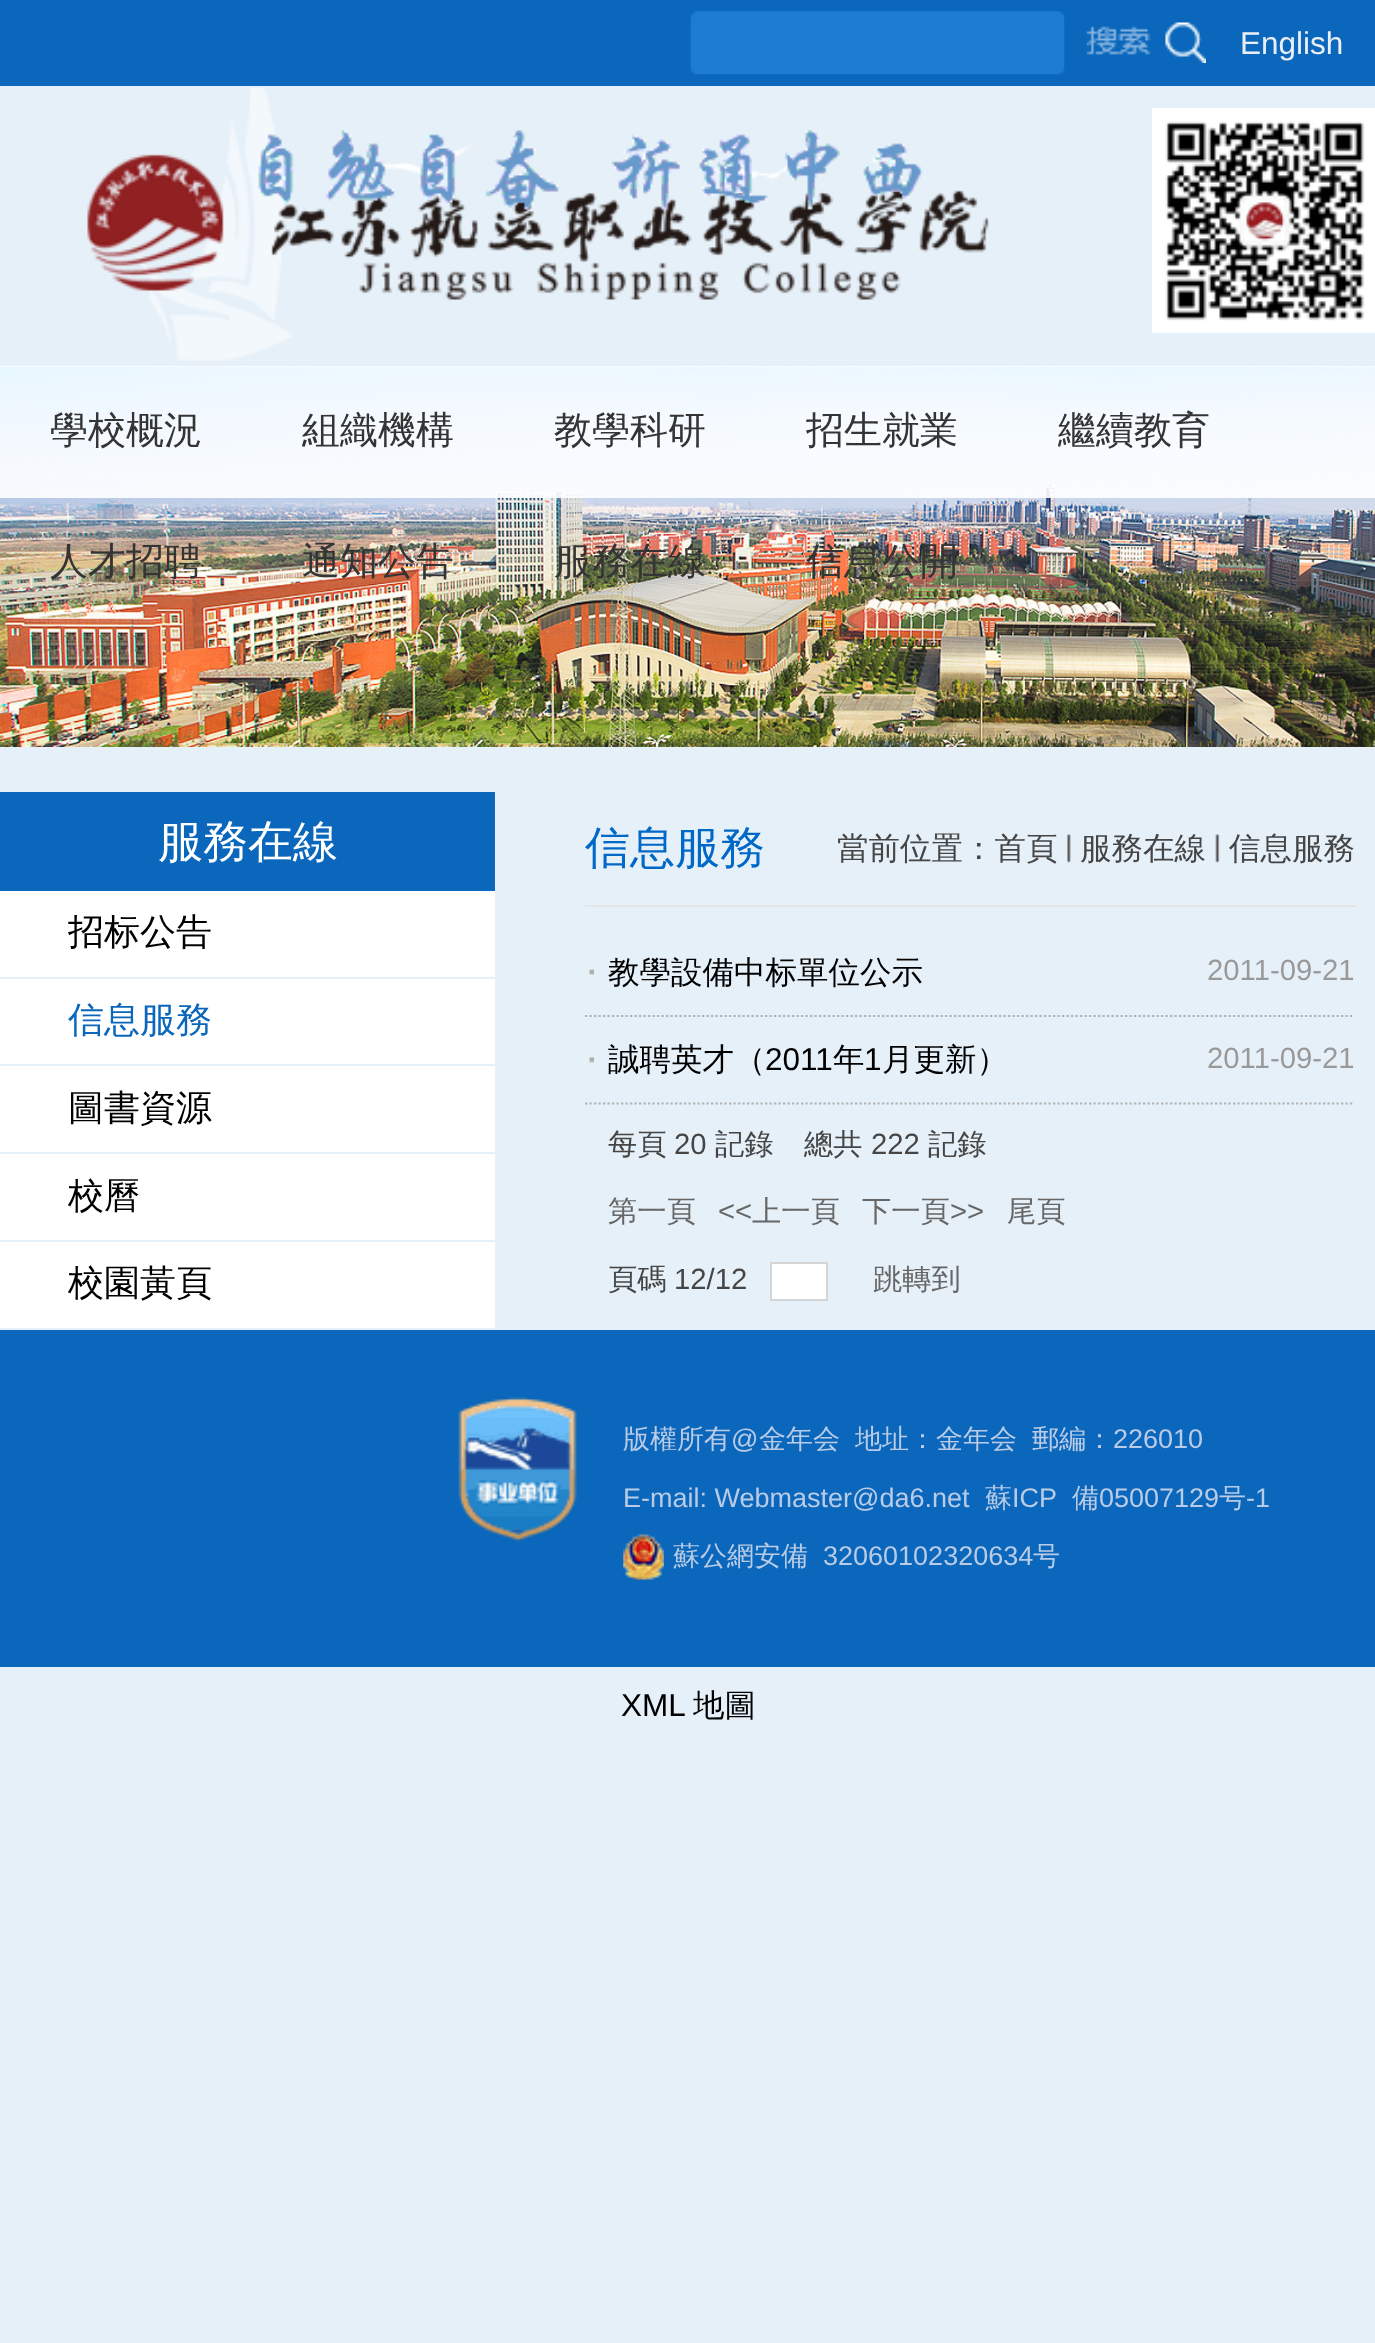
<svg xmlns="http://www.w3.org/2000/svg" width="1375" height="2343">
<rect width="100%" height="100%" fill="#e6f0f8"/>
<rect width="1375" height="86" fill="#0a67bc"/>
<image x="690" y="11" width="375" height="64" href="media/1.png"/>
<image x="1086" y="22" width="120" height="41" href="media/2.png"/>
<text x="1240" y="54" style="font-family:Liberation Sans;font-size:31.5px;fill:#e9eef7">English</text>
<image x="131" y="88" width="686" height="274" href="media/3.png"/>
<image x="87" y="154" width="902" height="146" href="media/6.png"/>
<image x="258" y="130" width="665" height="80" href="media/4.png"/>
<image x="1152" y="108" width="223" height="225" href="media/5.png"/>
<image x="0" y="366" width="1375" height="381" href="media/7.png"/>
<rect y="366" width="1375" height="132" fill="#ffffffe6"/>
<text x="50" y="443" style="font-family:WenQuanYi Zen Hei;font-size:38px;font-weight:500;fill:#353434">學校概況</text>
<text x="302" y="443" style="font-family:WenQuanYi Zen Hei;font-size:38px;font-weight:500;fill:#353434">組織機構</text>
<text x="554" y="443" style="font-family:WenQuanYi Zen Hei;font-size:38px;font-weight:500;fill:#353434">教學科研</text>
<text x="806" y="443" style="font-family:WenQuanYi Zen Hei;font-size:38px;font-weight:500;fill:#353434">招生就業</text>
<text x="1058" y="443" style="font-family:WenQuanYi Zen Hei;font-size:38px;font-weight:500;fill:#353434">繼續教育</text>
<text x="50" y="574" style="font-family:WenQuanYi Zen Hei;font-size:38px;font-weight:500;fill:#353434">人才招聘</text>
<text x="302" y="574" style="font-family:WenQuanYi Zen Hei;font-size:38px;font-weight:500;fill:#353434">通知公告</text>
<text x="554" y="574" style="font-family:WenQuanYi Zen Hei;font-size:38px;font-weight:500;fill:#353434">服務在線</text>
<text x="806" y="574" style="font-family:WenQuanYi Zen Hei;font-size:38px;font-weight:500;fill:#353434">信息公開</text>
<rect y="792" width="495" height="99" fill="#0a67bc"/>
<text x="158" y="857" style="font-family:WenQuanYi Zen Hei;font-size:45px;font-weight:500;fill:#fff">服務在線</text>
<rect y="891" width="495" height="86" fill="#fff"/>
<text x="68" y="944" style="font-family:WenQuanYi Zen Hei;font-size:36px;font-weight:500;fill:#000">招标公告</text>
<rect y="979" width="495" height="173" fill="#fff"/>
<rect y="1064" width="495" height="2" fill="#e6f0f8"/>
<text x="68" y="1032" style="font-family:WenQuanYi Zen Hei;font-size:36px;font-weight:500;fill:#0a67bc">信息服務</text>
<text x="68" y="1120" style="font-family:WenQuanYi Zen Hei;font-size:36px;font-weight:500;fill:#000">圖書資源</text>
<rect y="1154" width="495" height="86" fill="#fff"/>
<text x="68" y="1208" style="font-family:WenQuanYi Zen Hei;font-size:36px;font-weight:500;fill:#000">校曆</text>
<rect y="1242" width="495" height="86" fill="#fff"/>
<text x="68" y="1295" style="font-family:WenQuanYi Zen Hei;font-size:36px;font-weight:500;fill:#000">校園黃頁</text>
<rect x="585" y="905" width="770" height="2" fill="#e5e5e5"/>
<text x="585" y="863" style="font-family:WenQuanYi Zen Hei;font-size:45px;font-weight:500;fill:#0068c7">信息服務</text>
<text x="837" y="859" style="font-family:WenQuanYi Zen Hei;font-size:31.5px;font-weight:500;fill:#454545">當前位置：首頁</text>
<image x="1067" y="834" width="4" height="29" href="media/8.png"/>
<text x="1080" y="859" style="font-family:WenQuanYi Zen Hei;font-size:31.5px;font-weight:500;fill:#454545">服務在線</text>
<image x="1215" y="834" width="5" height="29" href="media/9.png"/>
<text x="1229" y="859" style="font-family:WenQuanYi Zen Hei;font-size:31.5px;font-weight:500;fill:#454545">信息服務</text>
<image x="589" y="969" width="5" height="6" href="media/10.png"/>
<path d="M585 1016h769.5" fill="none" stroke="#b1b1b1" stroke-width="2.2" stroke-dasharray="2.25 2.25"/>
<text x="608" y="983" style="font-family:WenQuanYi Zen Hei;font-size:31.5px;font-weight:500;fill:#000">教學設備中标單位公示</text>
<text x="1207" y="980" style="font-family:Liberation Sans;font-size:29.25px;fill:#999">2011-09-21</text>
<image x="589" y="1057" width="5" height="6" href="media/11.png"/>
<path d="M585 1103.5h769.5" fill="none" stroke="#b1b1b1" stroke-width="2.2" stroke-dasharray="2.25 2.25"/>
<text x="608" y="1070" style="font-family:WenQuanYi Zen Hei;font-size:31.5px;font-weight:500;fill:#000">誠聘英才（</text>
<text x="765" y="1070" style="font-family:Liberation Sans;font-size:31.5px;fill:#000">2011</text>
<text x="833" y="1070" style="font-family:WenQuanYi Zen Hei;font-size:31.5px;font-weight:500;fill:#000">年</text>
<text x="864" y="1070" style="font-family:Liberation Sans;font-size:31.5px;fill:#000">1</text>
<text x="882" y="1070" style="font-family:WenQuanYi Zen Hei;font-size:31.5px;font-weight:500;fill:#000">月更新）</text>
<text x="1207" y="1068" style="font-family:Liberation Sans;font-size:29.25px;fill:#999">2011-09-21</text>
<text x="608" y="1154" style="font-family:WenQuanYi Zen Hei;font-size:29.25px;font-weight:500;fill:#454545">每頁</text>
<text x="674" y="1154" style="font-family:Liberation Sans;font-size:29.25px;fill:#454545">20</text>
<text x="715" y="1154" style="font-family:WenQuanYi Zen Hei;font-size:29.25px;font-weight:500;fill:#454545">記錄</text>
<text x="804" y="1154" style="font-family:WenQuanYi Zen Hei;font-size:29.25px;font-weight:500;fill:#454545">總共</text>
<text x="871" y="1154" style="font-family:Liberation Sans;font-size:29.25px;fill:#454545">222</text>
<text x="928" y="1154" style="font-family:WenQuanYi Zen Hei;font-size:29.25px;font-weight:500;fill:#454545">記錄</text>
<text x="608" y="1221" style="font-family:WenQuanYi Zen Hei;font-size:29.25px;font-weight:500;fill:#666">第一頁</text>
<text x="718" y="1221" style="font-family:Liberation Sans;font-size:29.25px;fill:#666">&lt;&lt;</text>
<text x="752" y="1221" style="font-family:WenQuanYi Zen Hei;font-size:29.25px;font-weight:500;fill:#666">上一頁</text>
<text x="862" y="1221" style="font-family:WenQuanYi Zen Hei;font-size:29.25px;font-weight:500;fill:#666">下一頁</text>
<text x="950" y="1221" style="font-family:Liberation Sans;font-size:29.25px;fill:#666">&gt;&gt;</text>
<text x="1007" y="1221" style="font-family:WenQuanYi Zen Hei;font-size:29.25px;font-weight:500;fill:#666">尾頁</text>
<text x="608" y="1289" style="font-family:WenQuanYi Zen Hei;font-size:29.25px;font-weight:500;fill:#454545">頁碼</text>
<text x="674" y="1289" style="font-family:Liberation Sans;font-size:29.25px;fill:#454545">12/12</text>
<rect x="771" y="1263" width="56" height="37" fill="#fff" stroke="#d5d5d5" stroke-width="2"/>
<text x="873" y="1289" style="font-family:WenQuanYi Zen Hei;font-size:29.25px;font-weight:500;fill:#666">跳轉到</text>
<rect y="1330" width="1375" height="337" fill="#0a67bc"/>
<image x="458" y="1396" width="119" height="146" href="media/12.png"/>
<text x="623" y="1448" style="font-family:WenQuanYi Zen Hei;font-size:27px;font-weight:500;fill:#b9cbe6">版權所有</text>
<text x="731" y="1448" style="font-family:Liberation Sans;font-size:27px;fill:#b9cbe6">@</text>
<text x="759" y="1448" style="font-family:WenQuanYi Zen Hei;font-size:27px;font-weight:500;fill:#b9cbe6">金年会</text>
<text x="855" y="1448" style="font-family:WenQuanYi Zen Hei;font-size:27px;font-weight:500;fill:#b9cbe6">地址：金年会</text>
<text x="1032" y="1448" style="font-family:WenQuanYi Zen Hei;font-size:27px;font-weight:500;fill:#b9cbe6">郵編：</text>
<text x="1113" y="1448" style="font-family:Liberation Sans;font-size:27px;fill:#b9cbe6">226010</text>
<text x="623" y="1507" style="font-family:Liberation Sans;font-size:27px;fill:#b9cbe6">E-mail: Webmaster@da6.net</text>
<text x="985" y="1507" style="font-family:WenQuanYi Zen Hei;font-size:27px;font-weight:500;fill:#b9cbe6">蘇</text>
<text x="1012" y="1507" style="font-family:Liberation Sans;font-size:27px;fill:#b9cbe6">ICP</text>
<text x="1072" y="1507" style="font-family:WenQuanYi Zen Hei;font-size:27px;font-weight:500;fill:#b9cbe6">備</text>
<text x="1099" y="1507" style="font-family:Liberation Sans;font-size:27px;fill:#b9cbe6">05007129</text>
<text x="1219" y="1507" style="font-family:WenQuanYi Zen Hei;font-size:27px;font-weight:500;fill:#b9cbe6">号</text>
<text x="1246" y="1507" style="font-family:Liberation Sans;font-size:27px;fill:#b9cbe6">-1</text>
<image x="623" y="1534" width="41" height="46" href="media/13.png"/>
<text x="673" y="1565" style="font-family:WenQuanYi Zen Hei;font-size:27px;font-weight:500;fill:#b9cbe6">蘇公網安備</text>
<text x="823" y="1565" style="font-family:Liberation Sans;font-size:27px;fill:#b9cbe6">32060102320634</text>
<text x="1033" y="1565" style="font-family:WenQuanYi Zen Hei;font-size:27px;font-weight:500;fill:#b9cbe6">号</text>
<text x="621" y="1716" style="font-family:Liberation Sans;font-size:31.5px;fill:#000">XML</text>
<text x="693" y="1716" style="font-family:WenQuanYi Zen Hei;font-size:31.5px;font-weight:500;fill:#000">地圖</text>
</svg>
